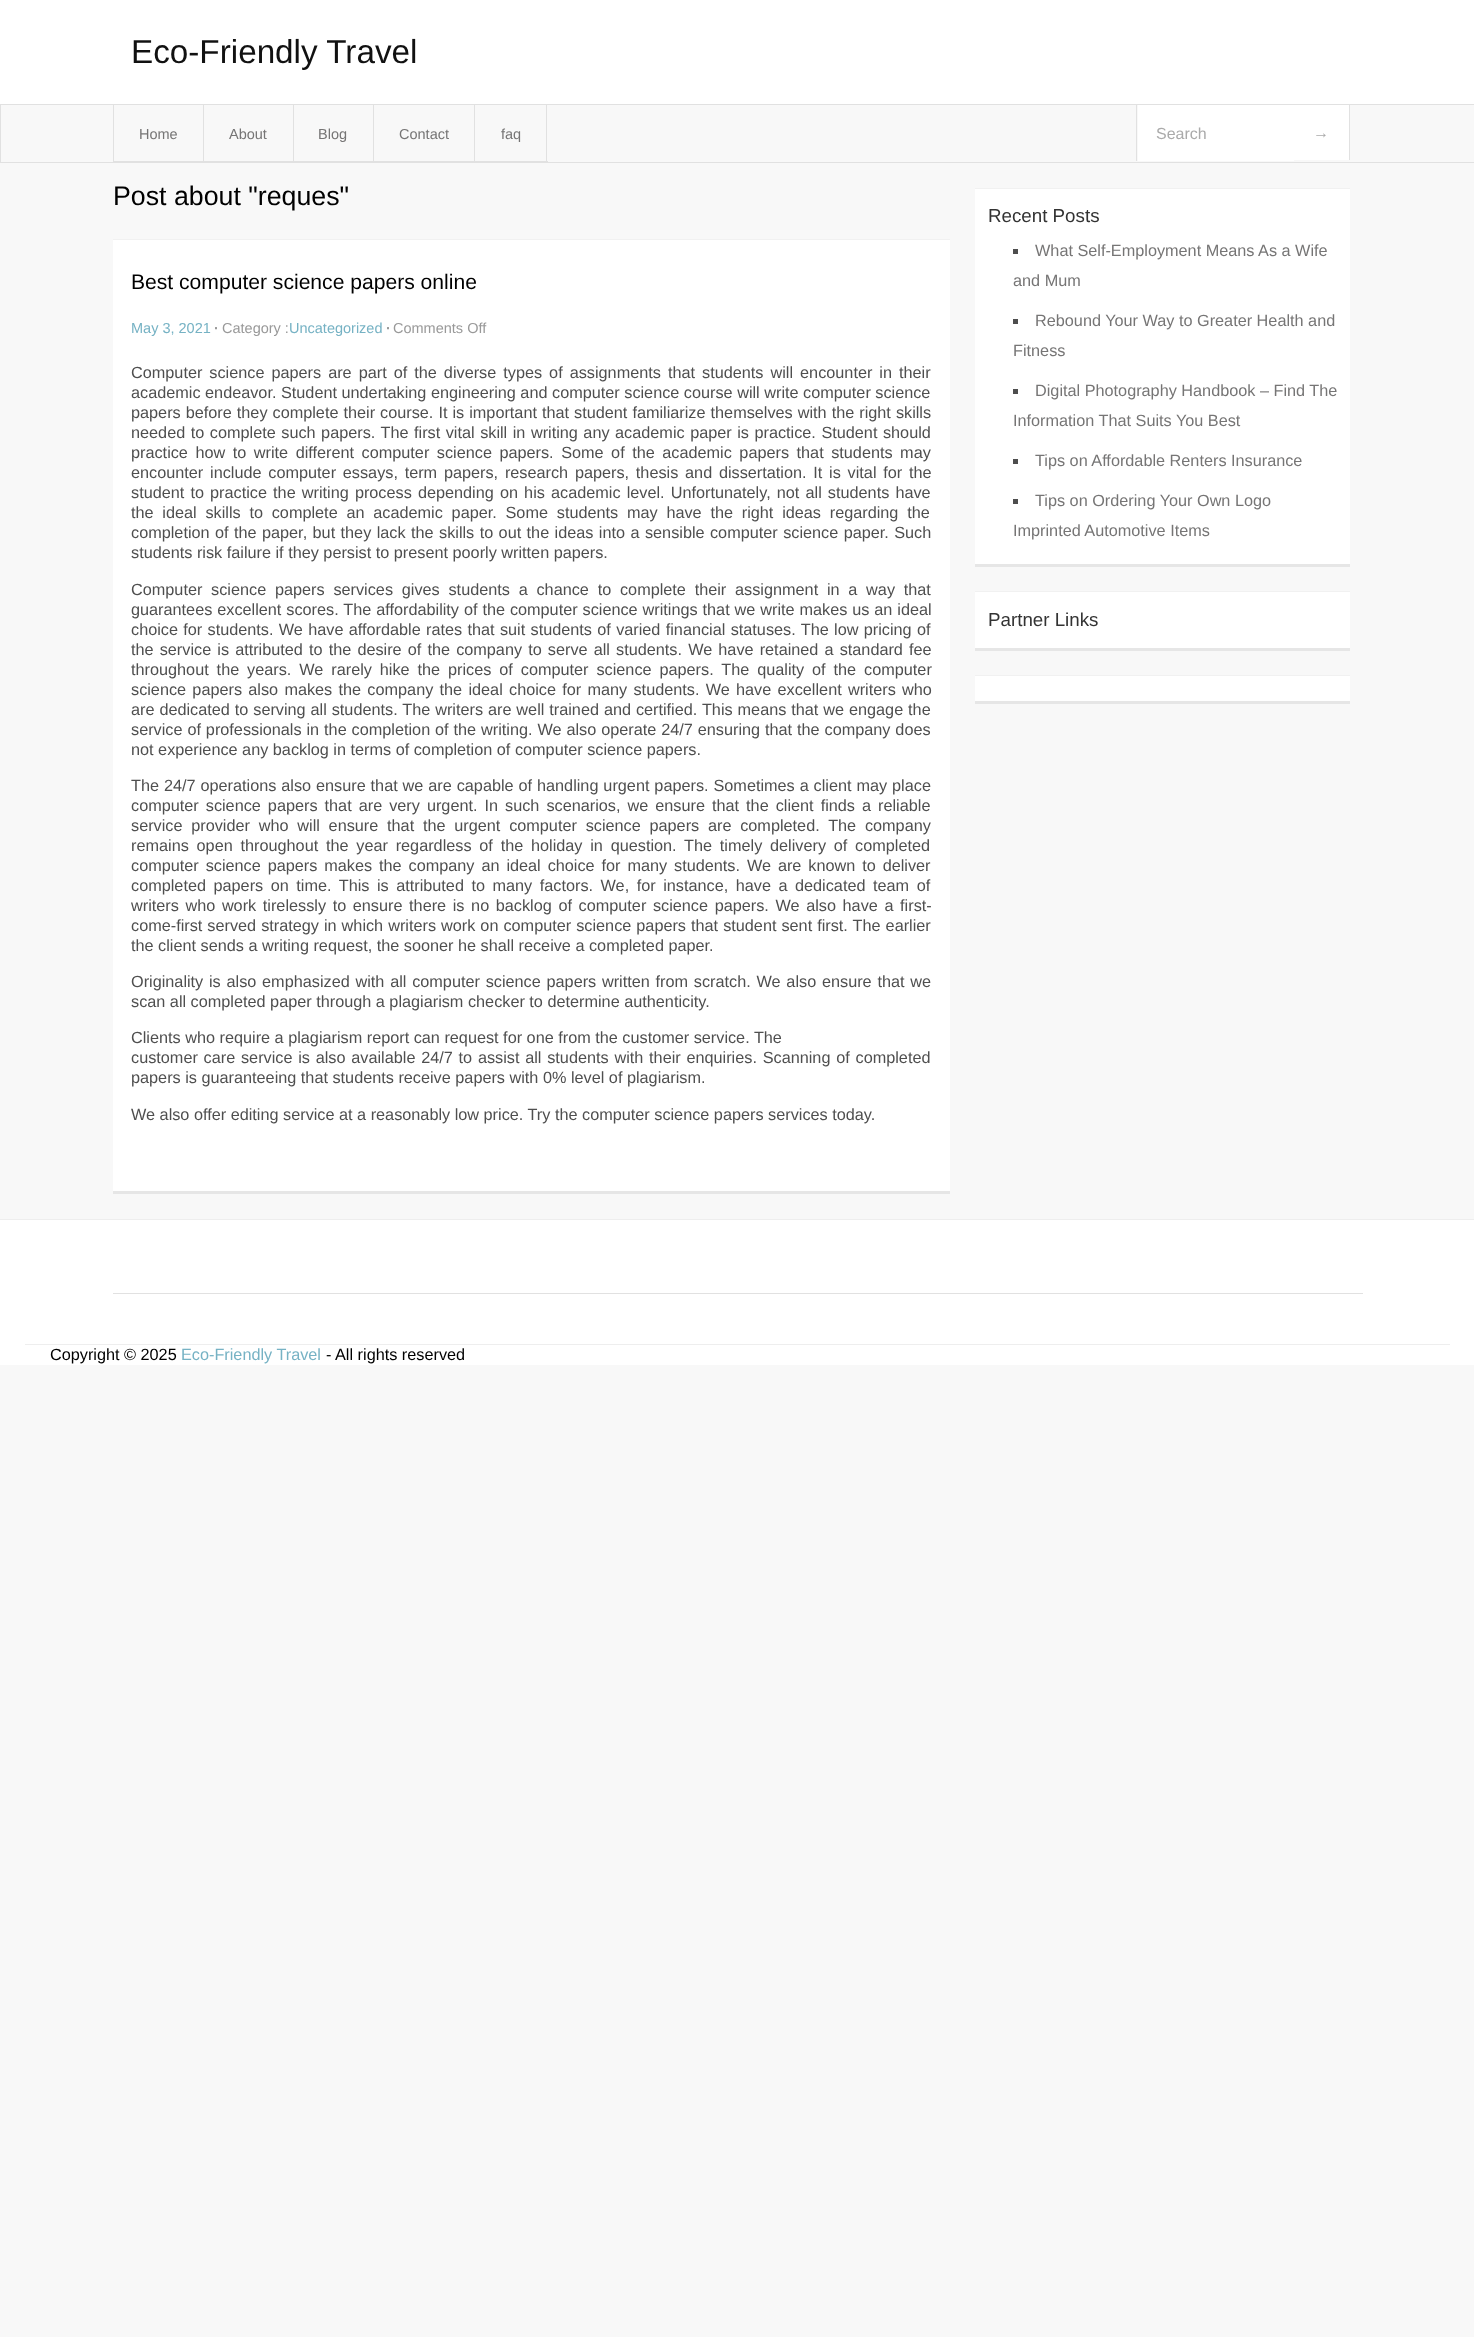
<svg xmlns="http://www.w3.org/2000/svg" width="1474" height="2337">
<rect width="100%" height="100%" fill="#f8f8f8"/>
<rect width="1474" height="104" fill="#fff"/>
<text x="131" y="63" style="font-family:Liberation Sans;font-size:33.25px;fill:#111">Eco-Friendly Travel</text>
<rect x="0.5" y="104.5" width="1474" height="58" fill="none" stroke="#e1e1e1"/>
<rect x="113" y="105" width="1" height="58" fill="#e1e1e1"/>
<rect x="203" y="105" width="1" height="58" fill="#e1e1e1"/>
<rect x="114" y="161" width="90" height="1" fill="#e1e1e1"/>
<text x="139" y="139" style="font-family:Liberation Sans;font-size:14.5px;fill:#767575">Home</text>
<rect x="293" y="105" width="1" height="58" fill="#e1e1e1"/>
<rect x="204" y="161" width="90" height="1" fill="#e1e1e1"/>
<text x="229" y="139" style="font-family:Liberation Sans;font-size:14.5px;fill:#767575">About</text>
<rect x="373" y="105" width="1" height="58" fill="#e1e1e1"/>
<rect x="294" y="161" width="80" height="1" fill="#e1e1e1"/>
<text x="318" y="139" style="font-family:Liberation Sans;font-size:14.5px;fill:#767575">Blog</text>
<rect x="474" y="105" width="1" height="58" fill="#e1e1e1"/>
<rect x="374" y="161" width="101" height="1" fill="#e1e1e1"/>
<text x="399" y="139" style="font-family:Liberation Sans;font-size:14.5px;fill:#767575">Contact</text>
<rect x="546" y="105" width="1" height="58" fill="#e1e1e1"/>
<rect x="475" y="161" width="73" height="1" fill="#e1e1e1"/>
<text x="501" y="139" style="font-family:Liberation Sans;font-size:14.5px;fill:#767575">faq</text>
<rect x="1138" y="105" width="156" height="56" fill="#fff"/>
<rect x="1136" y="105" width="1" height="56" fill="#e1e1e1"/>
<text x="1156" y="139" style="font-family:Liberation Sans;font-size:16px;fill:#aaa">Search</text>
<rect x="1294" y="105" width="55" height="55" fill="#fff"/>
<rect x="1349" y="105" width="1" height="55" fill="#e1e1e1"/>
<text x="1313" y="138" style="font-family:Liberation Sans;font-size:16px;fill:#aaa">→</text>
<text x="113" y="205" style="font-family:Liberation Sans;font-size:26.75px;fill:#000">Post about "reques"</text>
<rect x="113" y="240" width="837" height="951" fill="#fff"/>
<rect x="113" y="239" width="837" height="1" fill="#f1f1f1"/>
<rect x="113" y="1191" width="837" height="3" fill="#e6e6e6"/>
<text x="131" y="289" style="font-family:Liberation Sans;font-size:21.1px;fill:#000">Best computer science papers online</text>
<text x="131" y="333" style="font-family:Liberation Sans;font-size:14.5px;fill:#76b2c4">May 3, 2021</text>
<text x="214" y="333" style="font-family:Liberation Sans;font-size:14.5px;font-weight:bold;fill:#999">·</text>
<text x="222" y="333" style="font-family:Liberation Sans;font-size:14.5px;fill:#999">Category :</text>
<text x="289" y="333" style="font-family:Liberation Sans;font-size:14.5px;fill:#76b2c4">Uncategorized</text>
<text x="386" y="333" style="font-family:Liberation Sans;font-size:14.5px;font-weight:bold;fill:#999">·</text>
<text x="393" y="333" style="font-family:Liberation Sans;font-size:14.5px;fill:#999">Comments Off</text>
<text x="131" y="378" word-spacing="2.5" style="font-family:Liberation Sans;font-size:16.25px;fill:#4f4f4f">Computer science papers are part of the diverse types of assignments that students will encounter in their</text>
<text x="131" y="398" style="font-family:Liberation Sans;font-size:16.25px;fill:#4f4f4f">academic endeavor. Student undertaking engineering and computer science course will write computer science</text>
<text x="131" y="418" word-spacing="0.5" style="font-family:Liberation Sans;font-size:16.25px;fill:#4f4f4f">papers before they complete their course. It is important that student familiarize themselves with the right skills</text>
<text x="131" y="438" word-spacing="1" style="font-family:Liberation Sans;font-size:16.25px;fill:#4f4f4f">needed to complete such papers. The first vital skill in writing any academic paper is practice. Student should</text>
<text x="131" y="458" word-spacing="3" style="font-family:Liberation Sans;font-size:16.25px;fill:#4f4f4f">practice how to write different computer science papers. Some of the academic papers that students may</text>
<text x="131" y="478" word-spacing="2.25" style="font-family:Liberation Sans;font-size:16.25px;fill:#4f4f4f">encounter include computer essays, term papers, research papers, thesis and dissertation. It is vital for the</text>
<text x="131" y="498" word-spacing="1.6" style="font-family:Liberation Sans;font-size:16.25px;fill:#4f4f4f">student to practice the writing process depending on his academic level. Unfortunately, not all students have</text>
<text x="131" y="518" word-spacing="4.25" style="font-family:Liberation Sans;font-size:16.25px;fill:#4f4f4f">the ideal skills to complete an academic paper. Some students may have the right ideas regarding the</text>
<text x="131" y="538" word-spacing="0.9" style="font-family:Liberation Sans;font-size:16.25px;fill:#4f4f4f">completion of the paper, but they lack the skills to out the ideas into a sensible computer science paper. Such</text>
<text x="131" y="558" style="font-family:Liberation Sans;font-size:16.25px;fill:#4f4f4f">students risk failure if they persist to present poorly written papers.</text>
<text x="131" y="595" word-spacing="4.25" style="font-family:Liberation Sans;font-size:16.25px;fill:#4f4f4f">Computer science papers services gives students a chance to complete their assignment in a way that</text>
<text x="131" y="615" word-spacing="0.4" style="font-family:Liberation Sans;font-size:16.25px;fill:#4f4f4f">guarantees excellent scores. The affordability of the computer science writings that we write makes us an ideal</text>
<text x="131" y="635" word-spacing="0.8" style="font-family:Liberation Sans;font-size:16.25px;fill:#4f4f4f">choice for students. We have affordable rates that suit students of varied financial statuses. The low pricing of</text>
<text x="131" y="655" word-spacing="1.6" style="font-family:Liberation Sans;font-size:16.25px;fill:#4f4f4f">the service is attributed to the desire of the company to serve all students. We have retained a standard fee</text>
<text x="131" y="675" word-spacing="3.4" style="font-family:Liberation Sans;font-size:16.25px;fill:#4f4f4f">throughout the years. We rarely hike the prices of computer science papers. The quality of the computer</text>
<text x="131" y="695" word-spacing="1.75" style="font-family:Liberation Sans;font-size:16.25px;fill:#4f4f4f">science papers also makes the company the ideal choice for many students. We have excellent writers who</text>
<text x="131" y="715" word-spacing="0.4" style="font-family:Liberation Sans;font-size:16.25px;fill:#4f4f4f">are dedicated to serving all students. The writers are well trained and certified. This means that we engage the</text>
<text x="131" y="735" word-spacing="0.4" style="font-family:Liberation Sans;font-size:16.25px;fill:#4f4f4f">service of professionals in the completion of the writing. We also operate 24/7 ensuring that the company does</text>
<text x="131" y="755" style="font-family:Liberation Sans;font-size:16.25px;fill:#4f4f4f">not experience any backlog in terms of completion of computer science papers.</text>
<text x="131" y="791" word-spacing="0.4" style="font-family:Liberation Sans;font-size:16.25px;fill:#4f4f4f">The 24/7 operations also ensure that we are capable of handling urgent papers. Sometimes a client may place</text>
<text x="131" y="811" word-spacing="2.5" style="font-family:Liberation Sans;font-size:16.25px;fill:#4f4f4f">computer science papers that are very urgent. In such scenarios, we ensure that the client finds a reliable</text>
<text x="131" y="831" word-spacing="4.25" style="font-family:Liberation Sans;font-size:16.25px;fill:#4f4f4f">service provider who will ensure that the urgent computer science papers are completed. The company</text>
<text x="131" y="851" word-spacing="3.25" style="font-family:Liberation Sans;font-size:16.25px;fill:#4f4f4f">remains open throughout the year regardless of the holiday in question. The timely delivery of completed</text>
<text x="131" y="871" word-spacing="2.4" style="font-family:Liberation Sans;font-size:16.25px;fill:#4f4f4f">computer science papers makes the company an ideal choice for many students. We are known to deliver</text>
<text x="131" y="891" word-spacing="3" style="font-family:Liberation Sans;font-size:16.25px;fill:#4f4f4f">completed papers on time. This is attributed to many factors. We, for instance, have a dedicated team of</text>
<text x="131" y="911" word-spacing="2.1" style="font-family:Liberation Sans;font-size:16.25px;fill:#4f4f4f">writers who work tirelessly to ensure there is no backlog of computer science papers. We also have a first-</text>
<text x="131" y="931" word-spacing="0.5" style="font-family:Liberation Sans;font-size:16.25px;fill:#4f4f4f">come-first served strategy in which writers work on computer science papers that student sent first. The earlier</text>
<text x="131" y="951" style="font-family:Liberation Sans;font-size:16.25px;fill:#4f4f4f">the client sends a writing request, the sooner he shall receive a completed paper.</text>
<text x="131" y="987" word-spacing="1.25" style="font-family:Liberation Sans;font-size:16.25px;fill:#4f4f4f">Originality is also emphasized with all computer science papers written from scratch. We also ensure that we</text>
<text x="131" y="1007" style="font-family:Liberation Sans;font-size:16.25px;fill:#4f4f4f">scan all completed paper through a plagiarism checker to determine authenticity.</text>
<text x="131" y="1043" style="font-family:Liberation Sans;font-size:16.25px;fill:#4f4f4f">Clients who require a plagiarism report can request for one from the customer service. The</text>
<text x="131" y="1063" word-spacing="1.25" style="font-family:Liberation Sans;font-size:16.25px;fill:#4f4f4f">customer care service is also available 24/7 to assist all students with their enquiries. Scanning of completed</text>
<text x="131" y="1083" style="font-family:Liberation Sans;font-size:16.25px;fill:#4f4f4f">papers is guaranteeing that students receive papers with 0% level of plagiarism.</text>
<text x="131" y="1120" style="font-family:Liberation Sans;font-size:16.25px;fill:#4f4f4f">We also offer editing service at a reasonably low price. Try the computer science papers services today.</text>
<rect x="975" y="189" width="375" height="375" fill="#fff"/>
<rect x="975" y="188" width="375" height="1" fill="#f1f1f1"/>
<rect x="975" y="564" width="375" height="3" fill="#e6e6e6"/>
<text x="988" y="222" style="font-family:Liberation Sans;font-size:18.75px;fill:#333">Recent Posts</text>
<rect x="1013" y="249" width="5" height="5" fill="#4e4e4e"/>
<text x="1035" y="256" style="font-family:Liberation Sans;font-size:16.25px;fill:#767575">What Self-Employment Means As a Wife</text>
<text x="1013" y="286" style="font-family:Liberation Sans;font-size:16.25px;fill:#767575">and Mum</text>
<rect x="1013" y="319" width="5" height="5" fill="#4e4e4e"/>
<text x="1035" y="326" style="font-family:Liberation Sans;font-size:16.25px;fill:#767575">Rebound Your Way to Greater Health and</text>
<text x="1013" y="356" style="font-family:Liberation Sans;font-size:16.25px;fill:#767575">Fitness</text>
<rect x="1013" y="389" width="5" height="5" fill="#4e4e4e"/>
<text x="1035" y="396" style="font-family:Liberation Sans;font-size:16.25px;fill:#767575">Digital Photography Handbook – Find The</text>
<text x="1013" y="426" style="font-family:Liberation Sans;font-size:16.25px;fill:#767575">Information That Suits You Best</text>
<rect x="1013" y="459" width="5" height="5" fill="#4e4e4e"/>
<text x="1035" y="466" style="font-family:Liberation Sans;font-size:16.25px;fill:#767575">Tips on Affordable Renters Insurance</text>
<rect x="1013" y="499" width="5" height="5" fill="#4e4e4e"/>
<text x="1035" y="506" style="font-family:Liberation Sans;font-size:16.25px;fill:#767575">Tips on Ordering Your Own Logo</text>
<text x="1013" y="536" style="font-family:Liberation Sans;font-size:16.25px;fill:#767575">Imprinted Automotive Items</text>
<rect x="975" y="592" width="375" height="56" fill="#fff"/>
<rect x="975" y="591" width="375" height="1" fill="#f1f1f1"/>
<rect x="975" y="648" width="375" height="3" fill="#e6e6e6"/>
<text x="988" y="626" style="font-family:Liberation Sans;font-size:18.75px;fill:#333">Partner Links</text>
<rect x="975" y="676" width="375" height="25" fill="#fff"/>
<rect x="975" y="675" width="375" height="1" fill="#f1f1f1"/>
<rect x="975" y="701" width="375" height="3" fill="#e6e6e6"/>
<rect y="1220" width="1474" height="145" fill="#fff"/>
<rect y="1219" width="1474" height="1" fill="#eee"/>
<rect x="113" y="1293" width="1250" height="1" fill="#e1e1e1"/>
<rect x="25" y="1344" width="1425" height="1" fill="#eee"/>
<text x="50" y="1360" style="font-family:Liberation Sans;font-size:16.25px;fill:#000">Copyright © 2025</text>
<text x="181" y="1360" style="font-family:Liberation Sans;font-size:16.25px;fill:#76b2c4">Eco-Friendly Travel</text>
<text x="326" y="1360" style="font-family:Liberation Sans;font-size:16.25px;fill:#000">- All rights reserved</text>
</svg>
